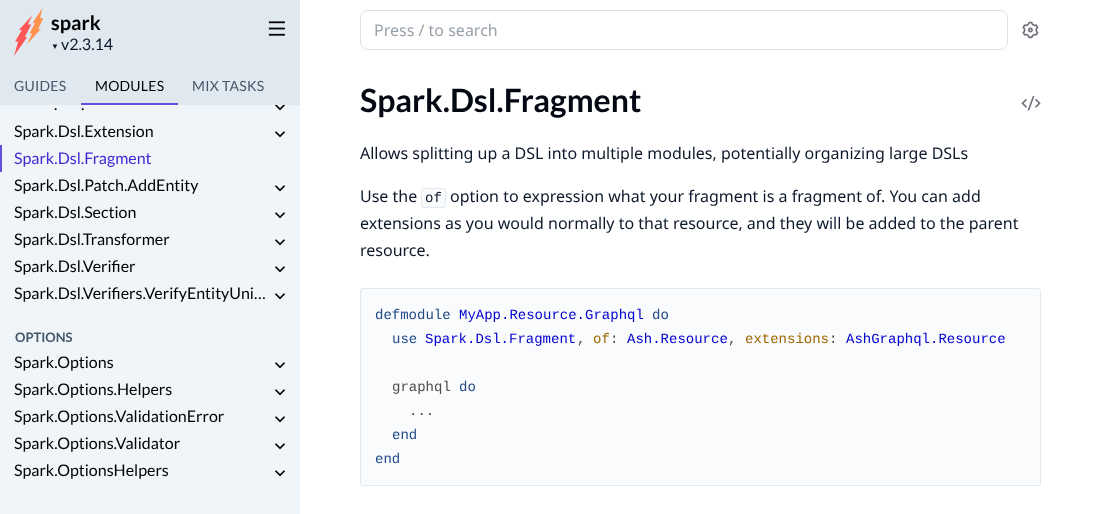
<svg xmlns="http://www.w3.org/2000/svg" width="1101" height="514">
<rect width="100%" height="100%" fill="#fff"/>
<rect y="105" width="300" height="409" fill="#f0f5f9"/>
<rect width="300" height="105" fill="#e0e8f0"/>
<image x="14" y="8" width="29" height="48" href="media/1.png"/>
<text x="51" y="30" style="font-family:Lato;font-size:20px;font-weight:bold;fill:#000">spark</text>
<text x="51" y="49" style="font-family:Liberation Sans;font-size:8px;fill:#0d192b">▼</text>
<text x="61" y="50" style="font-family:Lato;font-size:16px;fill:#0d192b">v2.3.14</text>
<text x="14" y="91" style="font-family:Lato;font-size:14px;letter-spacing:0.25px;fill:#445769">GUIDES</text>
<rect x="81" y="103" width="97" height="2" fill="#674fde"/>
<text x="95" y="91" style="font-family:Lato;font-size:14px;letter-spacing:0.25px;fill:#000">MODULES</text>
<text x="192" y="91" style="font-family:Lato;font-size:14px;letter-spacing:0.25px;fill:#445769">MIX TASKS</text>
<text x="54" y="110" style="font-family:Lato;font-size:16px;fill:#000">.</text>
<text x="81" y="110" style="font-family:Lato;font-size:16px;fill:#000">.</text>
<image x="275" y="105" width="10" height="6" href="media/2.png"/>
<text x="14" y="137" style="font-family:Lato;font-size:16px;fill:#000">Spark.Dsl.Extension</text>
<image x="275" y="131" width="10" height="7" href="media/3.png"/>
<rect y="145" width="2" height="27" fill="#674fde"/>
<text x="14" y="164" style="font-family:Lato;font-size:16px;fill:#4428d2">Spark.Dsl.Fragment</text>
<text x="14" y="191" style="font-family:Lato;font-size:16px;fill:#000">Spark.Dsl.Patch.AddEntity</text>
<image x="275" y="185" width="10" height="7" href="media/3.png"/>
<text x="14" y="218" style="font-family:Lato;font-size:16px;fill:#000">Spark.Dsl.Section</text>
<image x="275" y="212" width="10" height="7" href="media/3.png"/>
<text x="14" y="245" style="font-family:Lato;font-size:16px;fill:#000">Spark.Dsl.Transformer</text>
<image x="275" y="239" width="10" height="7" href="media/3.png"/>
<text x="14" y="272" style="font-family:Lato;font-size:16px;fill:#000">Spark.Dsl.Verifier</text>
<image x="275" y="266" width="10" height="7" href="media/3.png"/>
<text x="14" y="299" style="font-family:Lato;font-size:16px;fill:#000">Spark.Dsl.Verifiers.VerifyEntityUni…</text>
<image x="275" y="293" width="10" height="7" href="media/3.png"/>
<text x="15" y="342" style="font-family:Lato;font-size:13px;font-weight:bold;fill:#445769">OPTIONS</text>
<text x="14" y="368" style="font-family:Lato;font-size:16px;fill:#000">Spark.Options</text>
<image x="275" y="362" width="10" height="7" href="media/3.png"/>
<text x="14" y="395" style="font-family:Lato;font-size:16px;fill:#000">Spark.Options.Helpers</text>
<image x="275" y="389" width="10" height="7" href="media/3.png"/>
<text x="14" y="422" style="font-family:Lato;font-size:16px;fill:#000">Spark.Options.ValidationError</text>
<image x="275" y="416" width="10" height="7" href="media/3.png"/>
<text x="14" y="449" style="font-family:Lato;font-size:16px;fill:#000">Spark.Options.Validator</text>
<image x="275" y="443" width="10" height="7" href="media/3.png"/>
<text x="14" y="476" style="font-family:Lato;font-size:16px;fill:#000">Spark.OptionsHelpers</text>
<image x="275" y="470" width="10" height="7" href="media/3.png"/>
<image x="268" y="21" width="17" height="15" href="media/4.png"/>
<rect x="360.5" y="10.5" width="647" height="39" rx="7.5" fill="none" stroke="#d8e0e9"/>
<rect x="361" y="11" width="646" height="38" rx="8" fill="#fff"/>
<text x="374" y="36" style="font-family:Noto Sans;font-size:16px;fill:#98a1aa">Press / to search</text>
<image x="1022" y="21" width="17" height="18" href="media/5.png"/>
<text x="360" y="112" style="font-family:Lato;font-size:32px;font-weight:bold;fill:#030812">Spark.Dsl.Fragment</text>
<image x="1021" y="96" width="20" height="15" href="media/6.png"/>
<text x="360" y="159" style="font-family:Noto Sans;font-size:16px;fill:#0d192b">Allows splitting up a DSL into multiple modules, potentially organizing large DSLs</text>
<text x="360" y="202" style="font-family:Noto Sans;font-size:16px;fill:#0d192b">Use the</text>
<rect x="421.5" y="188.5" width="24" height="19" rx="2.5" fill="#fafbfd" stroke="#e0e8f0"/>
<text x="425" y="202" style="font-family:Liberation Mono;font-size:14px;fill:#0d192b">of</text>
<text x="450" y="202" style="font-family:Noto Sans;font-size:16px;fill:#0d192b">option to expression what your fragment is a fragment of. You can add</text>
<text x="360" y="229" style="font-family:Noto Sans;font-size:16px;fill:#0d192b">extensions as you would normally to that resource, and they will be added to the parent</text>
<text x="360" y="256" style="font-family:Noto Sans;font-size:16px;fill:#0d192b">resource.</text>
<rect x="360.5" y="288.5" width="680" height="197" rx="2.5" fill="#fafbfd" stroke="#e0e8f0"/>
<text x="375" y="319" style="font-family:Liberation Mono;font-size:14px;fill:#204a87">defmodule</text>
<text x="459" y="319" style="font-family:Liberation Mono;font-size:14px;fill:#0000cf">MyApp.Resource.Graphql</text>
<text x="652" y="319" style="font-family:Liberation Mono;font-size:14px;fill:#204a87">do</text>
<text x="392" y="343" style="font-family:Liberation Mono;font-size:14px;fill:#204a87">use</text>
<text x="425" y="343" style="font-family:Liberation Mono;font-size:14px;fill:#0000cf">Spark.Dsl.Fragment</text>
<text x="577" y="343" style="font-family:Liberation Mono;font-size:14px;fill:#4d4d4c">,</text>
<text x="593" y="343" style="font-family:Liberation Mono;font-size:14px;fill:#a06600">of</text>
<text x="610" y="343" style="font-family:Liberation Mono;font-size:14px;fill:#4d4d4c">:</text>
<text x="627" y="343" style="font-family:Liberation Mono;font-size:14px;fill:#0000cf">Ash.Resource</text>
<text x="728" y="343" style="font-family:Liberation Mono;font-size:14px;fill:#4d4d4c">,</text>
<text x="745" y="343" style="font-family:Liberation Mono;font-size:14px;fill:#a06600">extensions</text>
<text x="829" y="343" style="font-family:Liberation Mono;font-size:14px;fill:#4d4d4c">:</text>
<text x="846" y="343" style="font-family:Liberation Mono;font-size:14px;fill:#0000cf">AshGraphql.Resource</text>
<text x="392" y="391" style="font-family:Liberation Mono;font-size:14px;fill:#4d4d4c">graphql</text>
<text x="459" y="391" style="font-family:Liberation Mono;font-size:14px;fill:#204a87">do</text>
<text x="409" y="415" style="font-family:Liberation Mono;font-size:14px;fill:#4d4d4c">...</text>
<text x="392" y="439" style="font-family:Liberation Mono;font-size:14px;fill:#204a87">end</text>
<text x="375" y="463" style="font-family:Liberation Mono;font-size:14px;fill:#204a87">end</text>
</svg>
